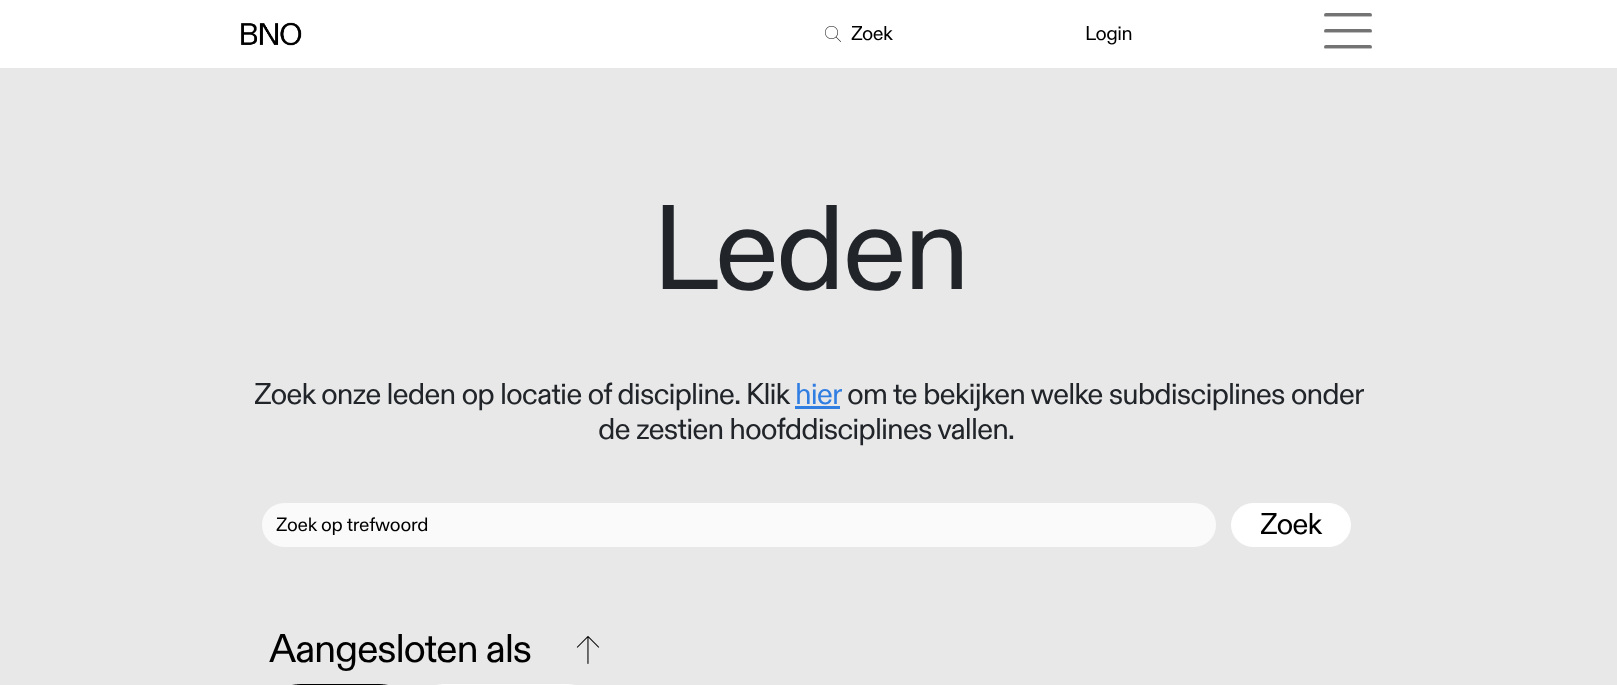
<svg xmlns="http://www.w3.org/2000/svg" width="1617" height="685">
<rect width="100%" height="100%" fill="#fff"/>
<image x="241" y="22" width="61" height="24" href="media/1.png"/>
<image x="825" y="26" width="16" height="16" href="media/2.png"/>
<text x="851" y="40" style="font-family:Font;font-size:20px;letter-spacing:-0.5px;fill:#000">Zoek</text>
<text x="1085" y="40" style="font-family:Font;font-size:20px;letter-spacing:-0.5px;fill:#000">Login</text>
<image x="1324" y="13" width="48" height="36" href="media/3.png"/>
<path d="M1326 18h44m-44 16h44m-44 16h44" fill="none" stroke="#ffffff8c" stroke-width="4" stroke-linecap="round"/>
<rect y="68" width="1617" height="617" fill="#e8e8e9"/>
<text x="652" y="289" style="font-family:Font;font-size:120px;letter-spacing:-3.5px;fill:#212529">Leden</text>
<text x="254" y="404" style="font-family:Font;font-size:30px;letter-spacing:-0.95px;fill:#212529">Zoek onze leden op locatie of discipline. Klik</text>
<text x="795" y="404" style="font-family:Font;font-size:30px;letter-spacing:-0.95px;fill:#317ee2">hier</text>
<rect x="795" y="406" width="45" height="3" fill="#317ee2"/>
<text x="847" y="404" style="font-family:Font;font-size:30px;letter-spacing:-0.95px;fill:#212529">om te bekijken welke subdisciplines onder</text>
<text x="598" y="439" style="font-family:Font;font-size:30px;letter-spacing:-0.95px;fill:#212529">de zestien hoofddisciplines vallen.</text>
<rect x="262" y="503" width="954" height="44" rx="22" fill="#fafafa"/>
<text x="276" y="531" style="font-family:Font;font-size:19.25px;letter-spacing:-0.2px;fill:#000">Zoek op trefwoord</text>
<rect x="1231.5" y="503.5" width="119" height="43" rx="21.5" fill="#fff" stroke="#fff"/>
<text x="1260" y="534" style="font-family:Font;font-size:30px;letter-spacing:-0.95px;fill:#000">Zoek</text>
<text x="269" y="662" style="font-family:Font;font-size:40px;letter-spacing:-1.25px;fill:#000">Aangesloten als</text>
<image x="576" y="636" width="24" height="28" href="media/4.png"/>
<rect x="278.5" y="684.5" width="123" height="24" rx="22.5" fill="none" stroke="#000"/>
<rect x="422.5" y="684.5" width="166" height="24" rx="22.5" fill="none" stroke="#fff"/>
</svg>
